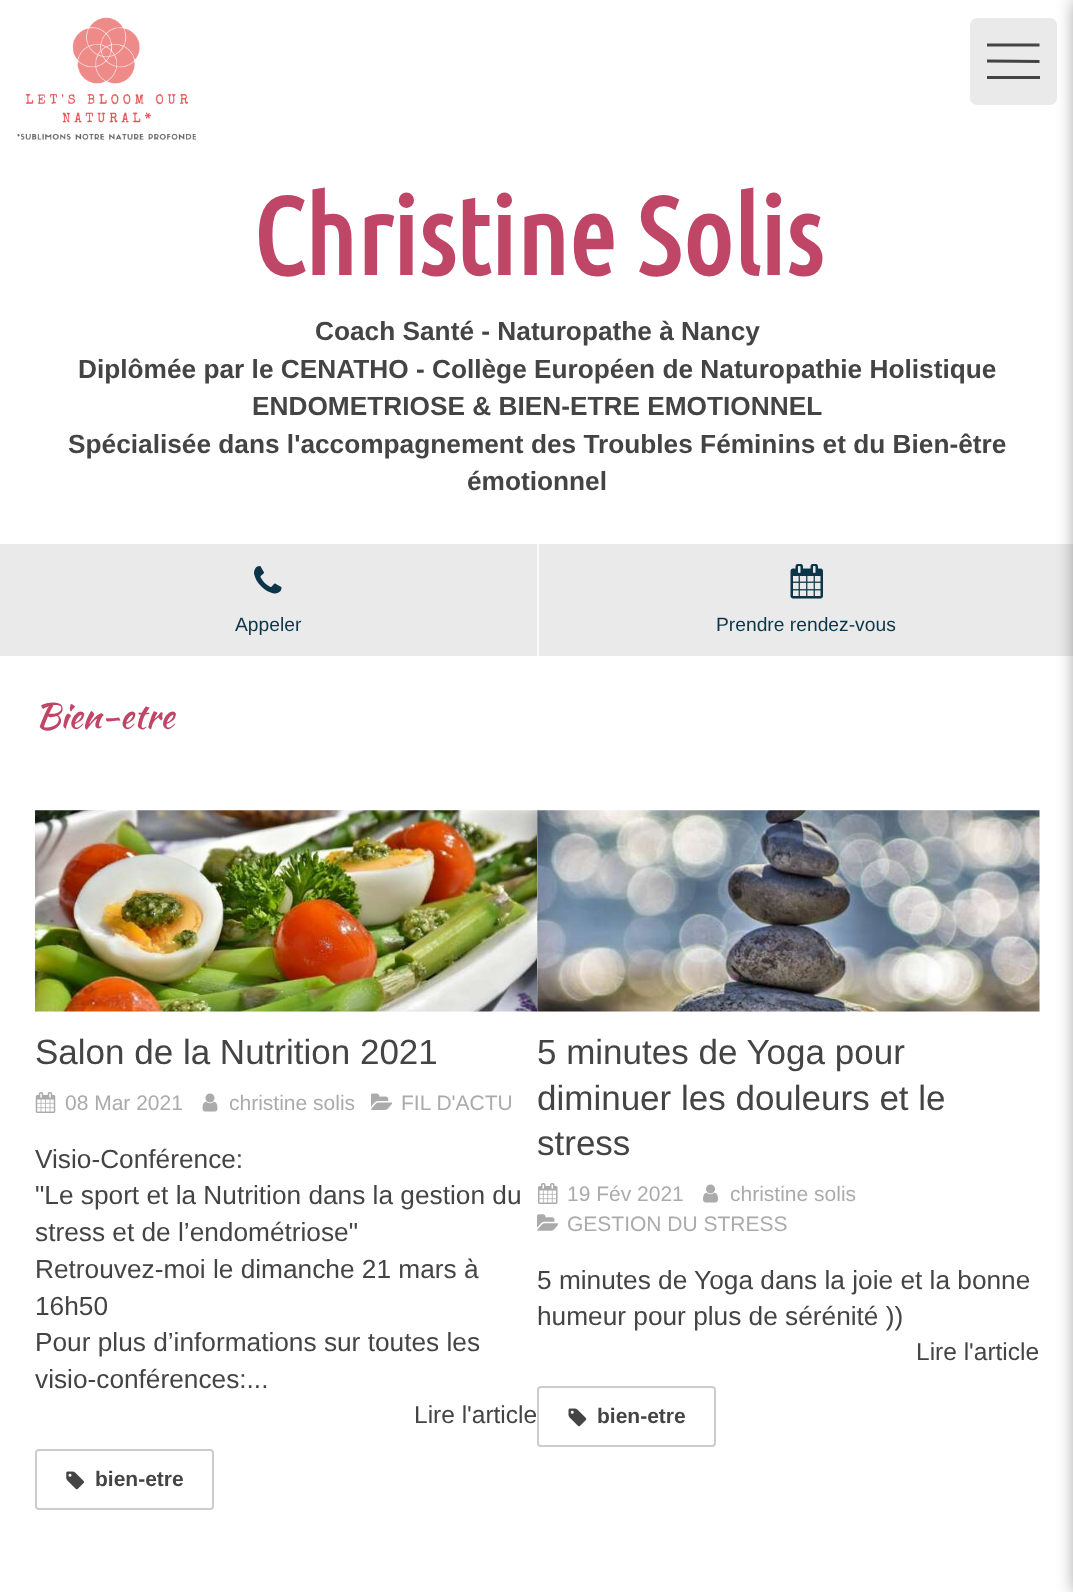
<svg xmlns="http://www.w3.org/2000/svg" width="1073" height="1592">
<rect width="100%" height="100%" fill="#fff"/>
<image x="17" y="17" width="179" height="123" href="media/1.png"/>
<rect x="970" y="18" width="87" height="87" rx="7" fill="#eaeaea"/>
<path d="M987 61l52.5 .5m-52.5-16.5h52.5" fill="none" stroke="#444" stroke-width="3.1"/>
<rect x="987" y="76" width="53" height="3" fill="#444"/>
<text x="253" y="275" style="font-family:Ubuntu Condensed;font-size:108.5px;font-weight:bold;fill:#bf4667">Christine Solis</text>
<text x="315" y="340" style="font-family:Liberation Sans;font-size:26.25px;font-weight:bold;fill:#444">Coach Santé - Naturopathe à Nancy</text>
<text x="78" y="378" style="font-family:Liberation Sans;font-size:26.25px;font-weight:bold;fill:#444">Diplômée par le CENATHO - Collège Européen de Naturopathie Holistique</text>
<text x="252" y="415" style="font-family:Liberation Sans;font-size:26.25px;font-weight:bold;fill:#444">ENDOMETRIOSE &amp; BIEN-ETRE EMOTIONNEL</text>
<text x="68" y="453" style="font-family:Liberation Sans;font-size:26.25px;font-weight:bold;fill:#444">Spécialisée dans l'accompagnement des Troubles Féminins et du Bien-être</text>
<text x="467" y="490" style="font-family:Liberation Sans;font-size:26.25px;font-weight:bold;fill:#444">émotionnel</text>
<rect y="544" width="1073" height="112" fill="#eaeaea"/>
<image x="254" y="566" width="28" height="28" href="media/2.png"/>
<text x="235" y="631" style="font-family:Liberation Sans;font-size:19.25px;fill:#0d354a">Appeler</text>
<rect x="537" y="543" width="2" height="115" fill="#fbfbfb"/>
<image x="790" y="564" width="33" height="35" href="media/3.png"/>
<text x="716" y="631" style="font-family:Liberation Sans;font-size:19.25px;fill:#0d354a">Prendre rendez-vous</text>
<rect x="537" y="656" width="2" height="2" fill="#fff"/>
<text x="35" y="728" style="font-family:Kaushan Script;font-size:35px;fill:#bf4667">Bien-etre</text>
<rect x="35" y="810" width="1005" height="202" fill="#fafafa"/>
<image x="35" y="810" width="502" height="202" href="media/4.png"/>
<text x="35" y="1064" style="font-family:Liberation Sans;font-size:35px;fill:#444">Salon de la Nutrition 2021</text>
<image x="35" y="1092" width="21" height="21" href="media/5.png"/>
<text x="65" y="1110" style="font-family:Liberation Sans;font-size:21px;fill:#ababab">08 Mar 2021</text>
<image x="202" y="1093" width="16" height="19" href="media/6.png"/>
<text x="229" y="1110" style="font-family:Liberation Sans;font-size:21px;fill:#ababab">christine solis</text>
<image x="371" y="1093" width="21" height="17" href="media/7.png"/>
<text x="401" y="1110" style="font-family:Liberation Sans;font-size:21px;fill:#ababab">FIL D'ACTU</text>
<text x="35" y="1168" style="font-family:Liberation Sans;font-size:26.25px;fill:#444">Visio-Conférence:</text>
<text x="35" y="1204" style="font-family:Liberation Sans;font-size:26.25px;fill:#444">"Le sport et la Nutrition dans la gestion du</text>
<text x="35" y="1241" style="font-family:Liberation Sans;font-size:26.25px;fill:#444">stress et de l’endométriose"</text>
<text x="35" y="1278" style="font-family:Liberation Sans;font-size:26.25px;fill:#444">Retrouvez-moi le dimanche 21 mars à</text>
<text x="35" y="1315" style="font-family:Liberation Sans;font-size:26.25px;fill:#444">16h50</text>
<text x="35" y="1351" style="font-family:Liberation Sans;font-size:26.25px;fill:#444">Pour plus d’informations sur toutes les</text>
<text x="35" y="1388" style="font-family:Liberation Sans;font-size:26.25px;fill:#444">visio-conférences:...</text>
<text x="414" y="1423" style="font-family:Liberation Sans;font-size:24.5px;fill:#444">Lire l'article</text>
<rect x="36" y="1450" width="177" height="59" rx="3" fill="none" stroke="#ccc" stroke-width="2"/>
<image x="66" y="1471" width="18" height="19" href="media/8.png"/>
<text x="95" y="1486" style="font-family:Liberation Sans;font-size:21px;font-weight:bold;fill:#444">bien-etre</text>
<image x="537" y="810" width="503" height="202" href="media/9.png"/>
<text x="537" y="1064" style="font-family:Liberation Sans;font-size:35px;fill:#444">5 minutes de Yoga pour</text>
<text x="537" y="1110" style="font-family:Liberation Sans;font-size:35px;fill:#444">diminuer les douleurs et le</text>
<text x="537" y="1155" style="font-family:Liberation Sans;font-size:35px;fill:#444">stress</text>
<image x="538" y="1183" width="20" height="21" href="media/10.png"/>
<text x="567" y="1201" style="font-family:Liberation Sans;font-size:21px;fill:#ababab">19 Fév 2021</text>
<image x="703" y="1184" width="15" height="19" href="media/11.png"/>
<text x="730" y="1201" style="font-family:Liberation Sans;font-size:21px;fill:#ababab">christine solis</text>
<image x="537" y="1214" width="21" height="17" href="media/12.png"/>
<text x="567" y="1231" style="font-family:Liberation Sans;font-size:21px;fill:#ababab">GESTION DU STRESS</text>
<text x="537" y="1289" style="font-family:Liberation Sans;font-size:26.25px;fill:#444">5 minutes de Yoga dans la joie et la bonne</text>
<text x="537" y="1325" style="font-family:Liberation Sans;font-size:26.25px;fill:#444">humeur pour plus de sérénité ))</text>
<text x="916" y="1360" style="font-family:Liberation Sans;font-size:24.5px;fill:#444">Lire l'article</text>
<rect x="538" y="1387" width="177" height="59" rx="3" fill="none" stroke="#ccc" stroke-width="2"/>
<image x="568" y="1408" width="19" height="19" href="media/13.png"/>
<text x="597" y="1423" style="font-family:Liberation Sans;font-size:21px;font-weight:bold;fill:#444">bien-etre</text>
<rect x="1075" width="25" height="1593" fill="#00000066" filter="blur(9px)"/>
</svg>
